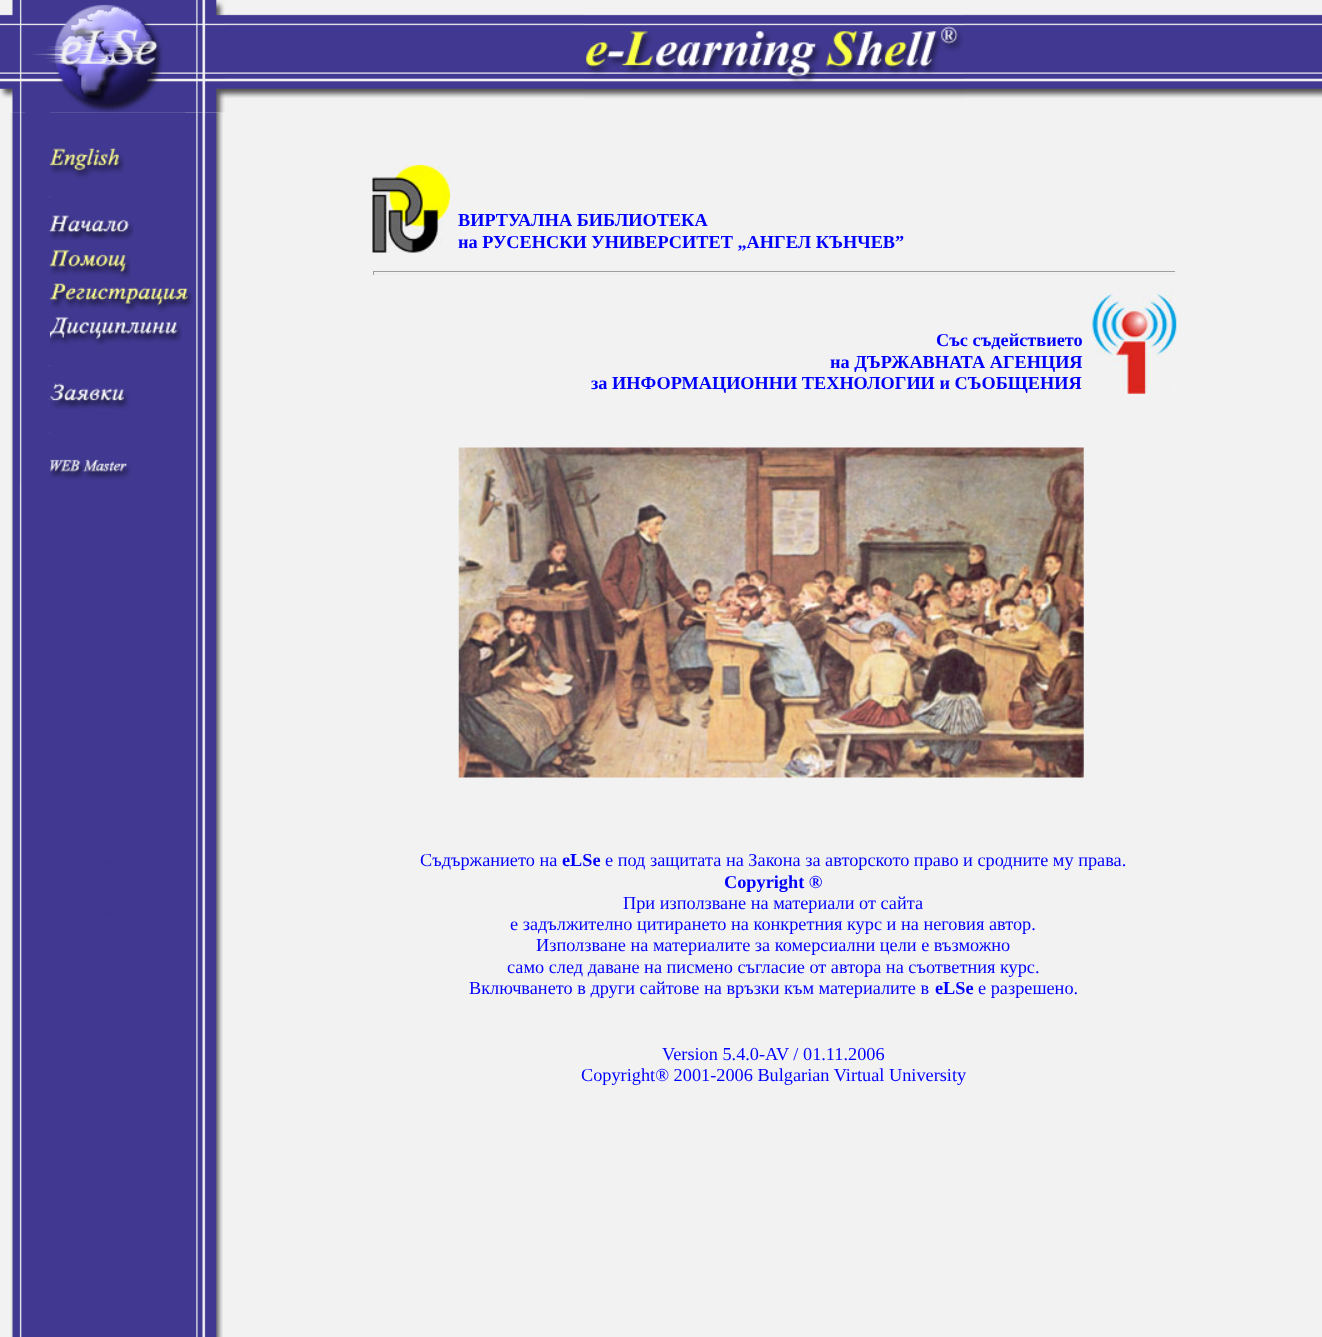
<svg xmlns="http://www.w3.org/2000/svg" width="1322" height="1337">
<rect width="100%" height="100%" fill="#f2f2f2"/>
<image x="10" y="112" width="213" height="1225" href="media/4.png"/>
<image x="0" y="0" width="225" height="113" href="media/1.png"/>
<image x="225" y="14" width="1097" height="84" href="media/2.png"/>
<image x="584" y="14" width="380" height="85" href="media/3.png"/>
<image x="11" y="112" width="14" height="34" href="media/5.png"/>
<rect x="25" y="112" width="25" height="1" fill="#413991"/>
<rect x="50" y="112" width="135" height="1" fill="#40389180"/>
<image x="19" y="146" width="2" height="34" href="media/6.png"/>
<image x="49" y="162" width="1" height="2" href="media/7.png"/>
<image x="50" y="148" width="75" height="31" href="media/8.png"/>
<image x="19" y="180" width="2" height="34" href="media/9.png"/>
<image x="49" y="196" width="1" height="2" href="media/10.png"/>
<image x="19" y="214" width="2" height="34" href="media/11.png"/>
<image x="48" y="230" width="2" height="2" href="media/12.png"/>
<image x="50" y="215" width="84" height="25" href="media/13.png"/>
<image x="19" y="248" width="2" height="33" href="media/14.png"/>
<image x="48" y="263" width="2" height="2" href="media/15.png"/>
<image x="50" y="249" width="81" height="30" href="media/16.png"/>
<image x="19" y="281" width="2" height="34" href="media/6.png"/>
<image x="49" y="297" width="1" height="2" href="media/17.png"/>
<image x="50" y="283" width="143" height="29" href="media/18.png"/>
<image x="19" y="315" width="2" height="34" href="media/9.png"/>
<image x="49" y="331" width="1" height="2" href="media/10.png"/>
<image x="50" y="317" width="132" height="29" href="media/19.png"/>
<image x="19" y="349" width="2" height="34" href="media/11.png"/>
<image x="48" y="365" width="2" height="2" href="media/12.png"/>
<image x="19" y="383" width="2" height="33" href="media/14.png"/>
<image x="48" y="398" width="2" height="2" href="media/15.png"/>
<image x="50" y="383" width="79" height="26" href="media/20.png"/>
<image x="19" y="416" width="2" height="34" href="media/6.png"/>
<image x="49" y="432" width="1" height="2" href="media/7.png"/>
<image x="19" y="450" width="2" height="34" href="media/9.png"/>
<image x="49" y="466" width="1" height="2" href="media/10.png"/>
<image x="50" y="459" width="82" height="21" href="media/21.png"/>
<image x="372" y="165" width="78" height="88" href="media/22.png"/>
<text x="458" y="226" style="font-family:Liberation Serif;font-size:18.3px;font-weight:bold;fill:#00f">ВИРТУАЛНА БИБЛИОТЕКА</text>
<text x="458" y="248" style="font-family:Liberation Serif;font-size:18.3px;font-weight:bold;fill:#00f">на РУСЕНСКИ УНИВЕРСИТЕТ „АНГЕЛ КЪНЧЕВ”</text>
<rect x="373" y="271" width="803" height="1" fill="#9f9f9f"/>
<rect x="1175" y="271" width="1" height="4" fill="#eee"/>
<rect x="373" y="274" width="803" height="1" fill="#eee"/>
<rect x="373" y="271" width="1" height="4" fill="#9f9f9f"/>
<text x="936" y="346" style="font-family:Liberation Serif;font-size:18.3px;font-weight:bold;fill:#00f">Със съдействието</text>
<text x="830" y="368" style="font-family:Liberation Serif;font-size:18.3px;font-weight:bold;fill:#00f">на ДЪРЖАВНАТА АГЕНЦИЯ</text>
<text x="591" y="389" style="font-family:Liberation Serif;font-size:18.3px;font-weight:bold;fill:#00f">за ИНФОРМАЦИОННИ ТЕХНОЛОГИИ и СЪОБЩЕНИЯ</text>
<image x="1092" y="293" width="85" height="101" href="media/23.png"/>
<image x="458" y="447" width="626" height="331" href="media/24.png"/>
<text x="420" y="866" style="font-family:Liberation Serif;font-size:18.3px;fill:#00f">Съдържанието на</text>
<text x="562" y="866" style="font-family:Liberation Serif;font-size:18.3px;font-weight:bold;fill:#00f">eLSe</text>
<text x="605" y="866" style="font-family:Liberation Serif;font-size:18.3px;fill:#00f">е под защитата на Закона за авторското право и сродните му права.</text>
<text x="724" y="888" style="font-family:Liberation Serif;font-size:18.3px;font-weight:bold;fill:#00f">Copyright ®</text>
<text x="623" y="909" style="font-family:Liberation Serif;font-size:18.3px;fill:#00f">При използване на материали от сайта</text>
<text x="510" y="930" style="font-family:Liberation Serif;font-size:18.3px;fill:#00f">е задължително цитирането на конкретния курс и на неговия автор.</text>
<text x="536" y="951" style="font-family:Liberation Serif;font-size:18.3px;fill:#00f">Използване на материалите за комерсиални цели е възможно</text>
<text x="507" y="973" style="font-family:Liberation Serif;font-size:18.3px;fill:#00f">само след даване на писмено съгласие от автора на съответния курс.</text>
<text x="469" y="994" style="font-family:Liberation Serif;font-size:18.3px;fill:#00f">Включването в други сайтове на връзки към материалите в</text>
<text x="935" y="994" style="font-family:Liberation Serif;font-size:18.3px;font-weight:bold;fill:#00f">eLSe</text>
<text x="978" y="994" style="font-family:Liberation Serif;font-size:18.3px;fill:#00f">е разрешено.</text>
<text x="662" y="1060" style="font-family:Liberation Serif;font-size:18.3px;fill:#00f">Version 5.4.0-AV / 01.11.2006</text>
<text x="581" y="1081" style="font-family:Liberation Serif;font-size:18.3px;fill:#00f">Copyright® 2001-2006 Bulgarian Virtual University</text>
</svg>
